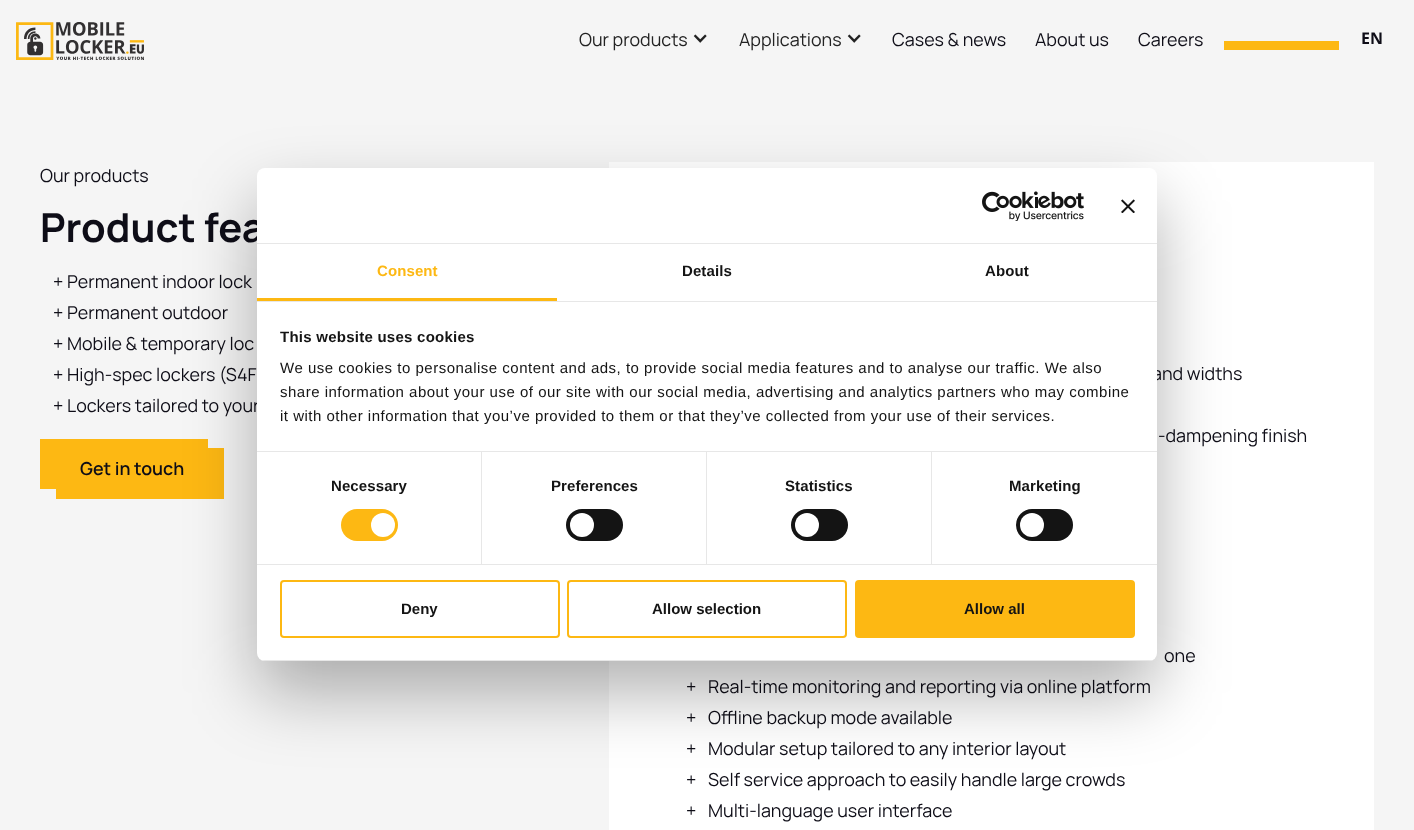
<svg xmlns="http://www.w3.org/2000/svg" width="1414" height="830">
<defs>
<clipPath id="clip1"><rect x="257" y="168" width="900" height="493" rx="8"/></clipPath>
</defs>
<rect width="100%" height="100%" fill="#f5f5f5"/>
<image x="16" y="22" width="128" height="38" href="media/1.png"/>
<text x="579" y="46" style="font-family:Manrope;font-size:17.9px;fill:#222">Our products</text>
<image x="693" y="34" width="14" height="9" href="media/2.png"/>
<text x="739" y="46" style="font-family:Manrope;font-size:17.9px;fill:#222">Applications</text>
<image x="847" y="34" width="14" height="9" href="media/2.png"/>
<text x="892" y="46" style="font-family:Manrope;font-size:17.9px;fill:#0e0d17">Cases &amp; news</text>
<text x="1035" y="46" style="font-family:Manrope;font-size:17.9px;fill:#0e0d17">About us</text>
<text x="1138" y="46" style="font-family:Manrope;font-size:17.9px;fill:#0e0d17">Careers</text>
<rect x="1224" y="41" width="115" height="9" fill="#fdb813"/>
<text x="1361" y="44" style="font-family:Noto Sans;font-size:16px;font-weight:bold;fill:#0e0d17">EN</text>
<text x="40" y="182" style="font-family:Manrope;font-size:17.9px;fill:#0e0d17">Our products</text>
<text x="40" y="242" style="font-family:Manrope;font-size:40px;font-weight:bold;fill:#0e0d17">Product fea</text>
<text x="53" y="288" style="font-family:Manrope;font-size:17.9px;fill:#0e0d17">+</text>
<text x="67" y="288" style="font-family:Manrope;font-size:17.9px;fill:#0e0d17">Permanent indoor lock</text>
<text x="53" y="319" style="font-family:Manrope;font-size:17.9px;fill:#0e0d17">+</text>
<text x="67" y="319" style="font-family:Manrope;font-size:17.9px;fill:#0e0d17">Permanent outdoor</text>
<text x="53" y="350" style="font-family:Manrope;font-size:17.9px;fill:#0e0d17">+</text>
<text x="67" y="350" style="font-family:Manrope;font-size:17.9px;fill:#0e0d17">Mobile &amp; temporary loc</text>
<text x="53" y="381" style="font-family:Manrope;font-size:17.9px;fill:#0e0d17">+</text>
<text x="67" y="381" style="font-family:Manrope;font-size:17.9px;fill:#0e0d17">High-spec lockers (S4F</text>
<text x="53" y="412" style="font-family:Manrope;font-size:17.9px;fill:#0e0d17">+</text>
<text x="67" y="412" style="font-family:Manrope;font-size:17.9px;fill:#0e0d17">Lockers tailored to your</text>
<rect x="40" y="439" width="168" height="50" fill="#fdb813"/>
<rect x="56" y="448" width="168" height="51" fill="#fdb813"/>
<text x="80" y="475" style="font-family:Manrope;font-size:17.9px;font-weight:600;fill:#0e0d17">Get in touch</text>
<rect x="609" y="162" width="765" height="668" fill="#fff"/>
<text x="1152" y="380" style="font-family:Manrope;font-size:17.9px;fill:#0e0d17">and widths</text>
<text x="1158" y="442" style="font-family:Manrope;font-size:17.9px;fill:#0e0d17">-dampening finish</text>
<text x="1164" y="662" style="font-family:Manrope;font-size:17.9px;fill:#0e0d17">one</text>
<text x="686" y="693" style="font-family:Manrope;font-size:17.9px;fill:#0e0d17">+</text>
<text x="708" y="693" style="font-family:Manrope;font-size:17.9px;fill:#0e0d17">Real-time monitoring and reporting via online platform</text>
<text x="686" y="724" style="font-family:Manrope;font-size:17.9px;fill:#0e0d17">+</text>
<text x="708" y="724" style="font-family:Manrope;font-size:17.9px;fill:#0e0d17">Offline backup mode available</text>
<text x="686" y="755" style="font-family:Manrope;font-size:17.9px;fill:#0e0d17">+</text>
<text x="708" y="755" style="font-family:Manrope;font-size:17.9px;fill:#0e0d17">Modular setup tailored to any interior layout</text>
<text x="686" y="786" style="font-family:Manrope;font-size:17.9px;fill:#0e0d17">+</text>
<text x="708" y="786" style="font-family:Manrope;font-size:17.9px;fill:#0e0d17">Self service approach to easily handle large crowds</text>
<text x="686" y="817" style="font-family:Manrope;font-size:17.9px;fill:#0e0d17">+</text>
<text x="708" y="817" style="font-family:Manrope;font-size:17.9px;fill:#0e0d17">Multi-language user interface</text>
<rect x="257" y="200" width="900" height="493" rx="8" fill="#0000004d" filter="blur(34px)"/>
<rect x="257" y="168" width="900" height="493" rx="8" fill="#fff"/>
<rect x="257" y="243" width="900" height="1" fill="#e7e7e7"/>
<image x="982" y="191" width="102" height="30" href="media/3.png"/>
<image x="1121" y="199" width="14" height="14" href="media/4.png"/>
<rect x="257" y="301" width="900" height="1" fill="#e7e7e7"/>
<rect x="257" y="298" width="300" height="3" fill="#fdb813"/>
<text x="377" y="276" style="font-family:Liberation Sans;font-size:15px;font-weight:bold;letter-spacing:0.1px;fill:#fdb813">Consent</text>
<text x="682" y="276" style="font-family:Liberation Sans;font-size:15px;font-weight:bold;letter-spacing:0.1px;fill:#141414">Details</text>
<text x="985" y="276" style="font-family:Liberation Sans;font-size:15px;font-weight:bold;letter-spacing:0.1px;fill:#141414">About</text>
<rect x="257" y="451" width="900" height="1" fill="#e7e7e7"/>
<text x="280" y="342" style="font-family:Liberation Sans;font-size:15px;font-weight:bold;letter-spacing:0.25px;fill:#141414">This website uses cookies</text>
<text x="280" y="373" style="font-family:Liberation Sans;font-size:15px;letter-spacing:0.5px;fill:#141414">We use cookies to personalise content and ads, to provide social media features and to analyse our traffic. We also</text>
<text x="280" y="397" style="font-family:Liberation Sans;font-size:15px;letter-spacing:0.5px;fill:#141414">share information about your use of our site with our social media, advertising and analytics partners who may combine</text>
<text x="280" y="421" style="font-family:Liberation Sans;font-size:15px;letter-spacing:0.5px;fill:#141414">it with other information that you’ve provided to them or that they’ve collected from your use of their services.</text>
<rect x="257" y="564" width="900" height="1" fill="#e7e7e7"/>
<rect x="481" y="452" width="1" height="112" fill="#e7e7e7"/>
<text x="331" y="491" style="font-family:Liberation Sans;font-size:15px;font-weight:bold;letter-spacing:0.1px;fill:#141414">Necessary</text>
<rect x="341" y="509" width="57" height="32" rx="16" fill="#fdb813"/>
<circle cx="383" cy="525" r="12" fill="#fff"/>
<rect x="706" y="452" width="1" height="112" fill="#e7e7e7"/>
<text x="551" y="491" style="font-family:Liberation Sans;font-size:15px;font-weight:bold;letter-spacing:0.1px;fill:#141414">Preferences</text>
<rect x="566" y="509" width="57" height="32" rx="16" fill="#141414"/>
<circle cx="582" cy="525" r="12" fill="#fff"/>
<rect x="931" y="452" width="1" height="112" fill="#e7e7e7"/>
<text x="785" y="491" style="font-family:Liberation Sans;font-size:15px;font-weight:bold;letter-spacing:0.1px;fill:#141414">Statistics</text>
<rect x="791" y="509" width="57" height="32" rx="16" fill="#141414"/>
<circle cx="807" cy="525" r="12" fill="#fff"/>
<text x="1009" y="491" style="font-family:Liberation Sans;font-size:15px;font-weight:bold;letter-spacing:0.1px;fill:#141414">Marketing</text>
<rect x="1016" y="509" width="57" height="32" rx="16" fill="#141414"/>
<circle cx="1032" cy="525" r="12" fill="#fff"/>
<g clip-path="url(#clip1)">
<rect x="257" y="660" width="900" height="1" fill="#e7e7e7"/>
</g>
<rect x="281" y="581" width="278" height="56" rx="3" fill="none" stroke="#fdb813" stroke-width="2"/>
<text x="401" y="614" style="font-family:Liberation Sans;font-size:15px;font-weight:bold;fill:#141414">Deny</text>
<rect x="568" y="581" width="278" height="56" rx="3" fill="none" stroke="#fdb813" stroke-width="2"/>
<text x="652" y="614" style="font-family:Liberation Sans;font-size:15px;font-weight:bold;fill:#141414">Allow selection</text>
<rect x="856" y="581" width="278" height="56" rx="3" fill="#fdb813" stroke="#fdb813" stroke-width="2"/>
<text x="964" y="614" style="font-family:Liberation Sans;font-size:15px;font-weight:bold;fill:#141414">Allow all</text>
</svg>
